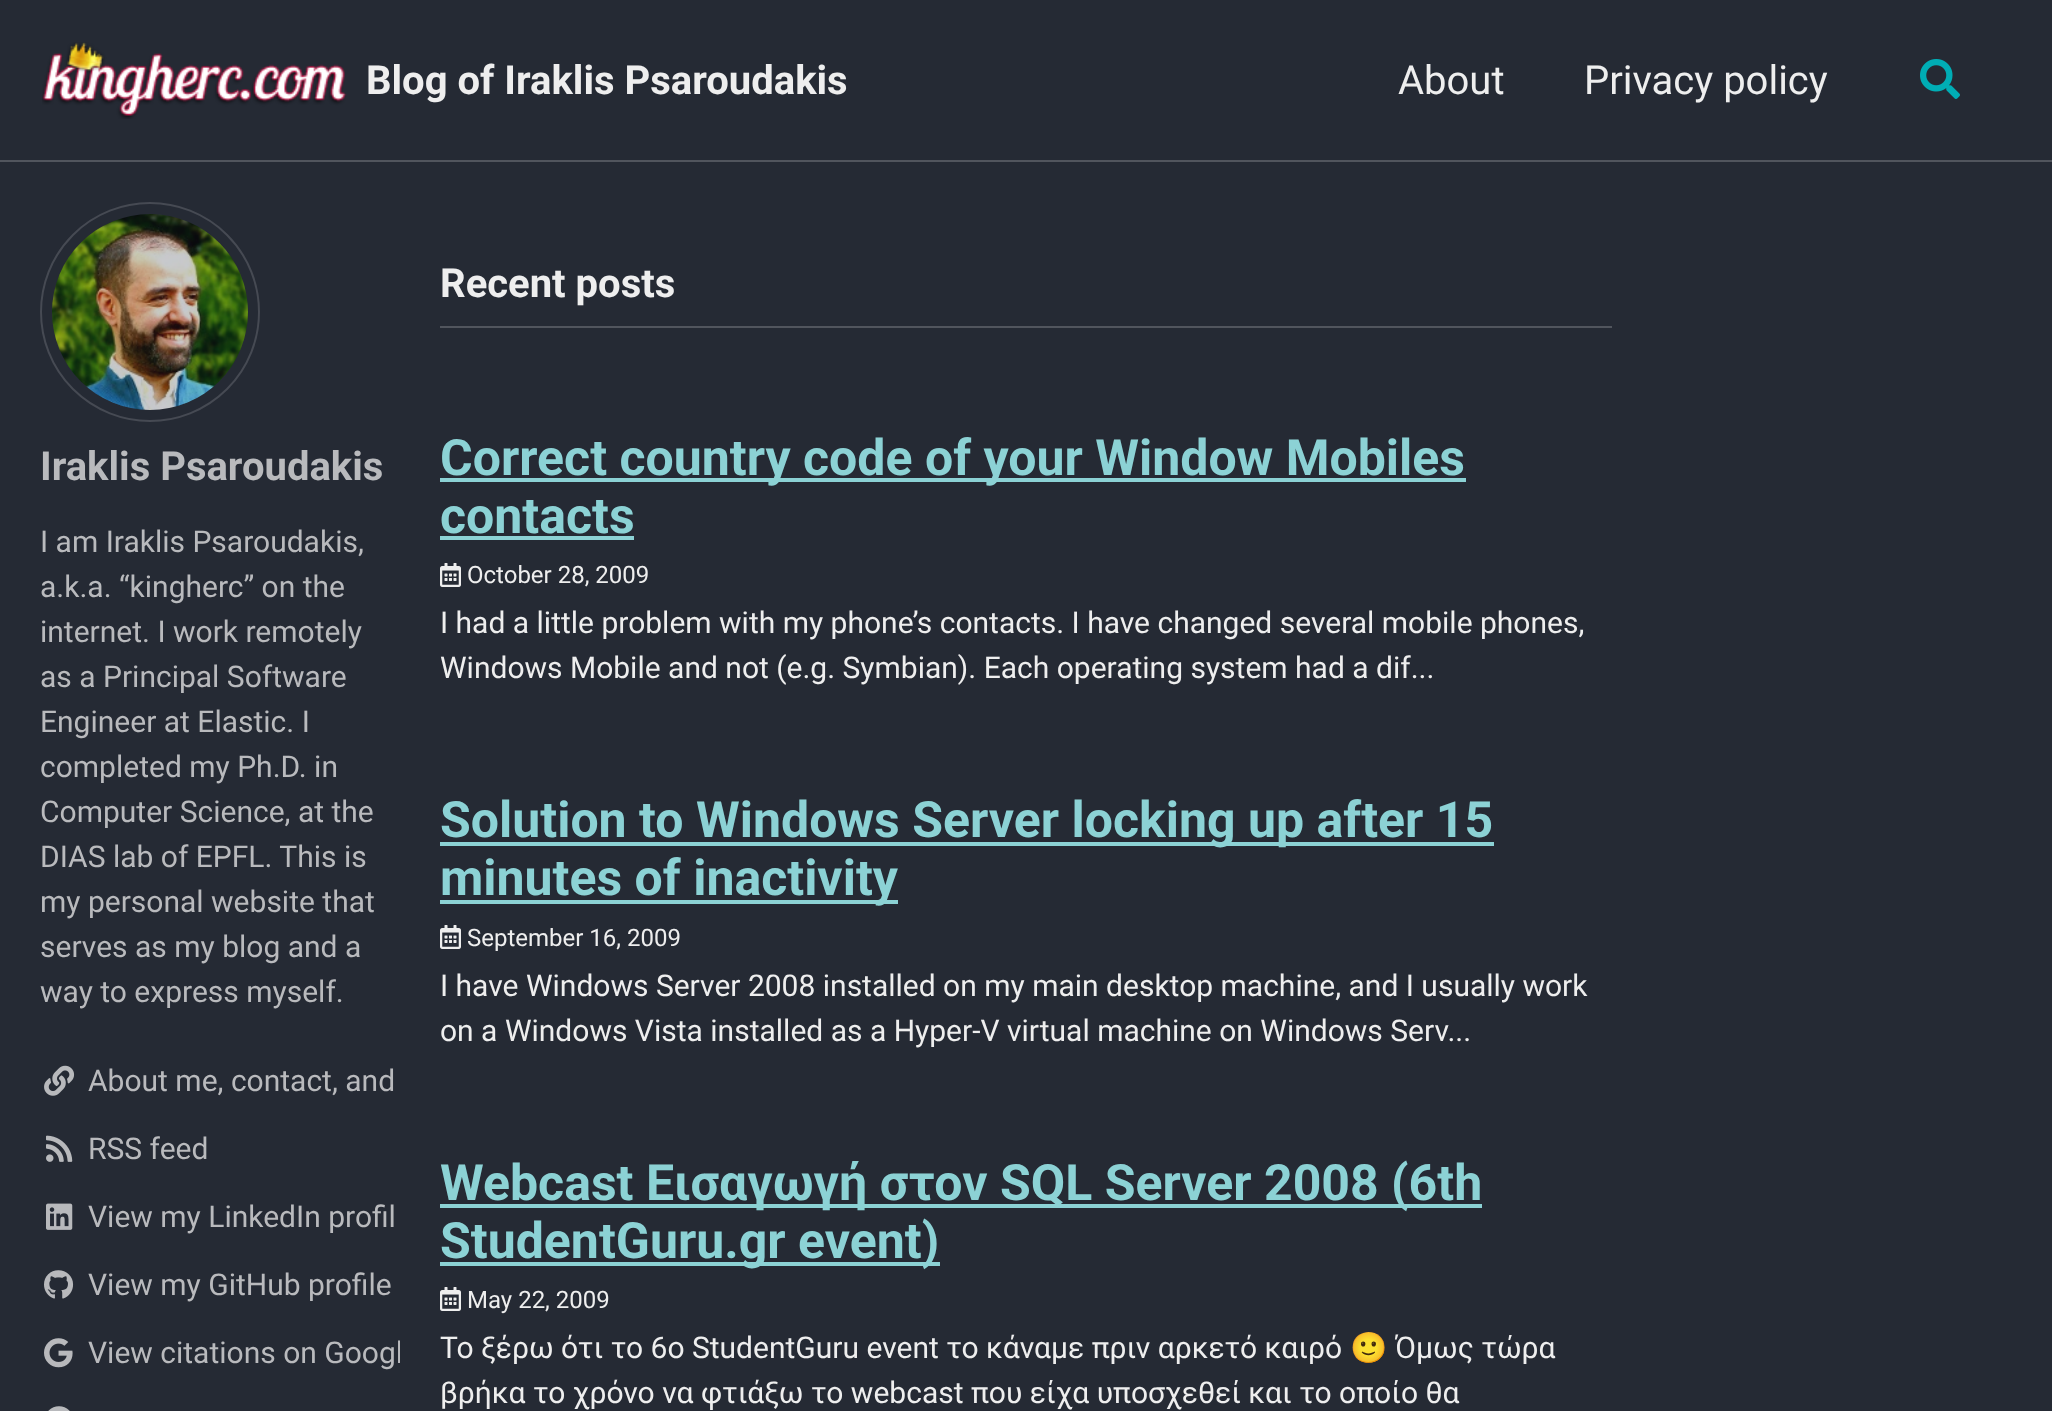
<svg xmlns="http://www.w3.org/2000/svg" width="2052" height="1411">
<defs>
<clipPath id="clip1"><rect x="40" y="162" width="360" height="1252"/></clipPath>
</defs>
<rect width="100%" height="100%" fill="#252a34"/>
<rect y="160" width="2052" height="2" fill="#51555d"/>
<image x="42" y="42" width="305" height="77" href="media/1.png"/>
<text x="366" y="94" style="font-family:Roboto;font-size:40px;font-weight:bold;fill:#eee">Blog of Iraklis Psaroudakis</text>
<text x="1398" y="94" style="font-family:Roboto;font-size:40px;fill:#eee">About</text>
<text x="1584" y="94" style="font-family:Roboto;font-size:40px;fill:#eee">Privacy policy</text>
<image x="1920" y="59" width="40" height="40" href="media/2.png"/>
<circle cx="150" cy="312" r="109" fill="none" stroke="#464a53" stroke-width="2"/>
<image x="52" y="214" width="196" height="196" href="media/3.png"/>
<text x="40" y="480" style="font-family:Roboto;font-size:40px;font-weight:bold;fill:#b9babd">Iraklis Psaroudakis</text>
<text x="40" y="552" style="font-family:Roboto;font-size:30px;fill:#b9babd">I am Iraklis Psaroudakis,</text>
<text x="40" y="597" style="font-family:Roboto;font-size:30px;fill:#b9babd">a.k.a. “kingherc” on the</text>
<text x="40" y="642" style="font-family:Roboto;font-size:30px;fill:#b9babd">internet. I work remotely</text>
<text x="40" y="687" style="font-family:Roboto;font-size:30px;fill:#b9babd">as a Principal Software</text>
<text x="40" y="732" style="font-family:Roboto;font-size:30px;fill:#b9babd">Engineer at Elastic. I</text>
<text x="40" y="777" style="font-family:Roboto;font-size:30px;fill:#b9babd">completed my Ph.D. in</text>
<text x="40" y="822" style="font-family:Roboto;font-size:30px;fill:#b9babd">Computer Science, at the</text>
<text x="40" y="867" style="font-family:Roboto;font-size:30px;fill:#b9babd">DIAS lab of EPFL. This is</text>
<text x="40" y="912" style="font-family:Roboto;font-size:30px;fill:#b9babd">my personal website that</text>
<text x="40" y="957" style="font-family:Roboto;font-size:30px;fill:#b9babd">serves as my blog and a</text>
<text x="40" y="1002" style="font-family:Roboto;font-size:30px;fill:#b9babd">way to express myself.</text>
<image x="44" y="1065" width="31" height="31" href="media/4.png"/>
<text x="88" y="1091" style="font-family:Roboto;font-size:30px;fill:#b9babd">About me, contact, and</text>
<image x="46" y="1135" width="27" height="27" href="media/5.png"/>
<text x="88" y="1159" style="font-family:Roboto;font-size:30px;fill:#b9babd">RSS feed</text>
<image x="46" y="1203" width="27" height="27" href="media/6.png"/>
<text x="88" y="1227" style="font-family:Roboto;font-size:30px;fill:#b9babd">View my LinkedIn profil</text>
<image x="44" y="1270" width="30" height="29" href="media/7.png"/>
<text x="88" y="1295" style="font-family:Roboto;font-size:30px;fill:#b9babd">View my GitHub profile</text>
<image x="44" y="1338" width="29" height="30" href="media/8.png"/>
<g clip-path="url(#clip1)">
<text x="88" y="1363" style="font-family:Roboto;font-size:30px;fill:#b9babd">View citations on Googl</text>
</g>
<image x="48" y="1406" width="22" height="5" href="media/9.png"/>
<rect x="440" y="326" width="1172" height="2" fill="#51555d"/>
<text x="440" y="297" style="font-family:Roboto;font-size:40px;font-weight:bold;fill:#eee">Recent posts</text>
<rect x="440" y="478" width="1026" height="4" fill="#8cd2d5"/>
<text x="440" y="475" style="font-family:Roboto;font-size:50px;font-weight:bold;fill:#8cd2d5">Correct country code of your Window Mobiles</text>
<text x="440" y="533" style="font-family:Roboto;font-size:50px;font-weight:bold;fill:#8cd2d5">contacts</text>
<rect x="440" y="536" width="194" height="4" fill="#8cd2d5"/>
<image x="440" y="563" width="21" height="24" href="media/10.png"/>
<text x="467" y="583" style="font-family:Roboto;font-size:24px;fill:#eee">October 28, 2009</text>
<text x="440" y="633" style="font-family:Roboto;font-size:30px;fill:#eee">I had a little problem with my phone’s contacts. I have changed several mobile phones,</text>
<text x="440" y="678" style="font-family:Roboto;font-size:30px;fill:#eee">Windows Mobile and not (e.g. Symbian). Each operating system had a dif...</text>
<rect x="440" y="842" width="1054" height="4" fill="#8cd2d5"/>
<text x="440" y="837" style="font-family:Roboto;font-size:50px;font-weight:bold;fill:#8cd2d5">Solution to Windows Server locking up after 15</text>
<rect x="440" y="900" width="458" height="4" fill="#8cd2d5"/>
<text x="440" y="895" style="font-family:Roboto;font-size:50px;font-weight:bold;fill:#8cd2d5">minutes of inactivity</text>
<image x="440" y="925" width="21" height="24" href="media/10.png"/>
<text x="467" y="946" style="font-family:Roboto;font-size:24px;fill:#eee">September 16, 2009</text>
<text x="440" y="996" style="font-family:Roboto;font-size:30px;fill:#eee">I have Windows Server 2008 installed on my main desktop machine, and I usually work</text>
<text x="440" y="1041" style="font-family:Roboto;font-size:30px;fill:#eee">on a Windows Vista installed as a Hyper-V virtual machine on Windows Serv...</text>
<rect x="440" y="1204" width="1042" height="4" fill="#8cd2d5"/>
<text x="440" y="1200" style="font-family:Roboto;font-size:50px;font-weight:bold;fill:#8cd2d5">Webcast Εισαγωγή στον SQL Server 2008 (6th</text>
<rect x="440" y="1262" width="500" height="4" fill="#8cd2d5"/>
<text x="440" y="1258" style="font-family:Roboto;font-size:50px;font-weight:bold;fill:#8cd2d5">StudentGuru.gr event)</text>
<image x="440" y="1287" width="21" height="24" href="media/10.png"/>
<text x="467" y="1308" style="font-family:Roboto;font-size:24px;fill:#eee">May 22, 2009</text>
<text x="440" y="1358" style="font-family:Roboto;font-size:30px;fill:#eee">Το ξέρω ότι το 6ο StudentGuru event το κάναμε πριν αρκετό καιρό</text>
<text x="1350" y="1358" style="font-family:Noto Color Emoji;font-size:30px;fill:#eee">🙂</text>
<text x="1395" y="1358" style="font-family:Roboto;font-size:30px;fill:#eee">Όμως τώρα</text>
<text x="440" y="1403" style="font-family:Roboto;font-size:30px;fill:#eee">βρήκα το χρόνο να φτιάξω το webcast που είχα υποσχεθεί και το οποίο θα</text>
</svg>
